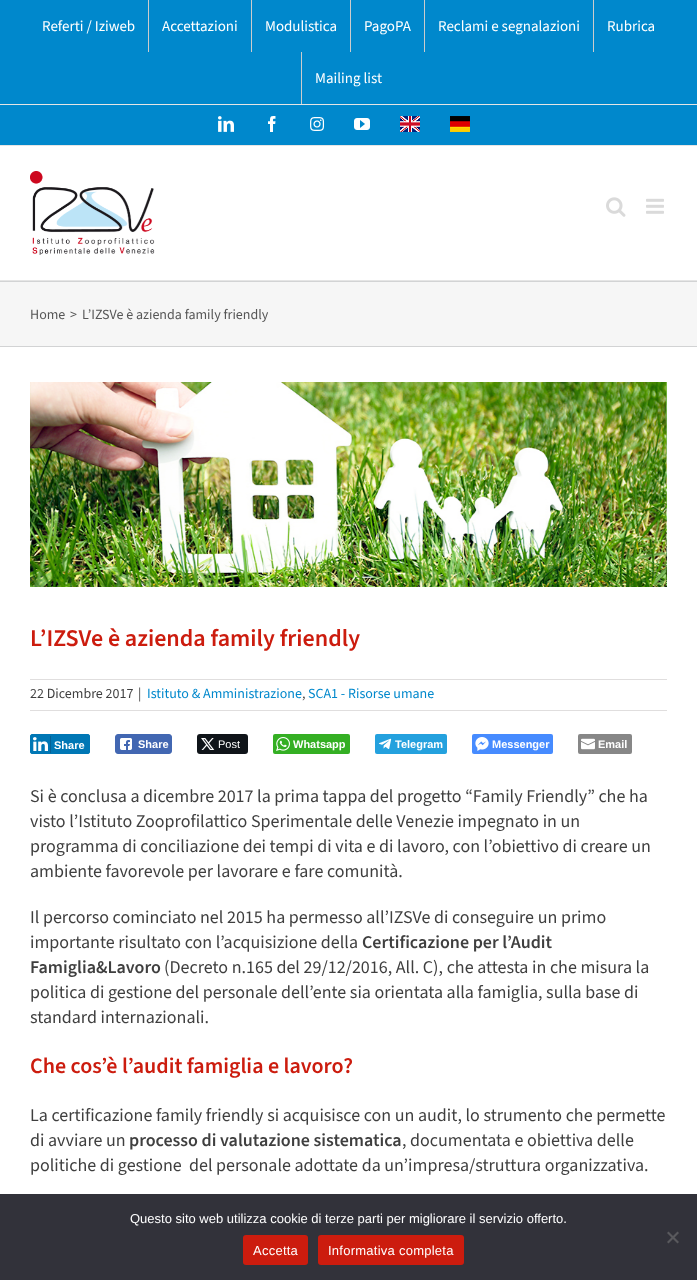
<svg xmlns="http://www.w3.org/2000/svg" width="697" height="1280">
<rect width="100%" height="100%" fill="#fff"/>
<rect width="697" height="145" fill="#08c"/>
<rect y="145" width="697" height="1" fill="#e5e5e5"/>
<rect y="104" width="697" height="1" fill="#e5e5e5"/>
<text x="42" y="31" style="font-family:'Source Sans 3';font-size:15px;fill:#fff">Referti / Iziweb</text>
<rect x="148" width="1" height="52" fill="#ccc"/>
<text x="162" y="31" style="font-family:'Source Sans 3';font-size:15px;fill:#fff">Accettazioni</text>
<rect x="251" width="1" height="52" fill="#ccc"/>
<text x="265" y="31" style="font-family:'Source Sans 3';font-size:15px;fill:#fff">Modulistica</text>
<rect x="350" width="1" height="52" fill="#ccc"/>
<text x="364" y="31" style="font-family:'Source Sans 3';font-size:15px;fill:#fff">PagoPA</text>
<rect x="424" width="1" height="52" fill="#ccc"/>
<text x="438" y="31" style="font-family:'Source Sans 3';font-size:15px;fill:#fff">Reclami e segnalazioni</text>
<rect x="593" width="1" height="52" fill="#ccc"/>
<text x="607" y="31" style="font-family:'Source Sans 3';font-size:15px;fill:#fff">Rubrica</text>
<rect x="301" y="52" width="1" height="52" fill="#ccc"/>
<text x="315" y="83" style="font-family:'Source Sans 3';font-size:15px;fill:#fff">Mailing list</text>
<image x="218" y="116" width="16" height="16" href="media/1.png"/>
<image x="268" y="116" width="8" height="16" href="media/2.png"/>
<image x="310" y="117" width="15" height="14" href="media/3.png"/>
<image x="354" y="118" width="16" height="12" href="media/4.png"/>
<image x="400" y="116" width="20" height="16" href="media/5.png"/>
<image x="450" y="116" width="20" height="16" href="media/6.png"/>
<rect y="280" width="697" height="1" fill="#e5e5e5"/>
<image x="30" y="171" width="125" height="84" href="media/7.png"/>
<image x="606" y="197" width="20" height="20" href="media/8.png"/>
<image x="646" y="198" width="18" height="16" href="media/9.png"/>
<rect y="282" width="697" height="64" fill="#f6f6f6"/>
<rect y="281" width="697" height="1" fill="#d2d3d4"/>
<rect y="346" width="697" height="1" fill="#d2d3d4"/>
<text x="30" y="319" style="font-family:'Source Sans 3';font-size:14px;fill:#565656">Home</text>
<text x="70" y="319" style="font-family:'Source Sans 3';font-size:14px;fill:#565656">&gt;</text>
<text x="82" y="319" style="font-family:'Source Sans 3';font-size:14px;fill:#565656">L’IZSVe è azienda family friendly</text>
<image x="30" y="382" width="637" height="205" href="media/10.png"/>
<text x="30" y="646" style="font-family:'Source Sans 3';font-size:24px;font-weight:600;fill:#cc1c0e">L’IZSVe è azienda family friendly</text>
<rect x="30" y="679" width="637" height="1" fill="#e0dede"/>
<rect x="30" y="710" width="637" height="1" fill="#e0dede"/>
<text x="30" y="698" style="font-family:'Source Sans 3';font-size:14px;fill:#3f3f3f">22 Dicembre 2017</text>
<text x="138" y="698" style="font-family:'Source Sans 3';font-size:14px;fill:#3f3f3f">|</text>
<text x="147" y="698" style="font-family:'Source Sans 3';font-size:14px;fill:#08c">Istituto &amp; Amministrazione</text>
<text x="302" y="698" style="font-family:'Source Sans 3';font-size:14px;fill:#3f3f3f">,</text>
<text x="308" y="698" style="font-family:'Source Sans 3';font-size:14px;fill:#08c">SCA1 - Risorse umane</text>
<rect x="30.5" y="734.5" width="59" height="19" rx="1.5" fill="#0077b5" stroke="#0077b5"/>
<rect x="50" y="736" width="1" height="17" fill="#066094"/>
<image x="33" y="737" width="15" height="14" href="media/11.png"/>
<text x="54" y="749" style="font-family:Liberation Sans;font-size:11px;font-weight:bold;fill:#fff">Share</text>
<rect x="115.5" y="734.5" width="56" height="19" rx="2.5" fill="#4267b2" stroke="#4267b2"/>
<image x="120" y="738" width="12" height="12" href="media/12.png"/>
<text x="138" y="748" style="font-family:Liberation Sans;font-size:11px;font-weight:bold;fill:#fff">Share</text>
<rect x="197" y="734" width="51" height="20" rx="3" fill="#0f1419"/>
<image x="201" y="738" width="14" height="12" href="media/13.png"/>
<text x="218" y="748" style="font-family:Liberation Sans;font-size:11px;fill:#fff">Post</text>
<rect x="273" y="734" width="77" height="20" rx="2" fill="#34af23"/>
<image x="276" y="737" width="14" height="14" href="media/14.png"/>
<text x="293" y="748" style="font-family:Liberation Sans;font-size:11px;font-weight:bold;fill:#fff">Whatsapp</text>
<rect x="375" y="734" width="72" height="20" rx="2" fill="#24a1de"/>
<image x="378" y="738" width="14" height="11" href="media/15.png"/>
<text x="395" y="748" style="font-family:Liberation Sans;font-size:11px;font-weight:bold;fill:#fff">Telegram</text>
<rect x="472" y="734" width="81" height="20" rx="2" fill="#468bff"/>
<image x="475" y="737" width="14" height="14" href="media/16.png"/>
<text x="492" y="748" style="font-family:Liberation Sans;font-size:11px;font-weight:bold;fill:#fff">Messenger</text>
<rect x="578" y="734" width="54" height="20" rx="2" fill="#878787"/>
<image x="581" y="738" width="14" height="12" href="media/17.png"/>
<text x="598" y="748" style="font-family:Liberation Sans;font-size:11px;font-weight:bold;fill:#fff">Email</text>
<text x="30" y="802" style="font-family:'Source Sans 3';font-size:18px;fill:#3f3f3f">Si è conclusa a dicembre 2017 la prima tappa del progetto “Family Friendly” che ha</text>
<text x="30" y="827" style="font-family:'Source Sans 3';font-size:18px;fill:#3f3f3f">visto l’Istituto Zooprofilattico Sperimentale delle Venezie impegnato in un</text>
<text x="30" y="852" style="font-family:'Source Sans 3';font-size:18px;fill:#3f3f3f">programma di conciliazione dei tempi di vita e di lavoro, con l’obiettivo di creare un</text>
<text x="30" y="877" style="font-family:'Source Sans 3';font-size:18px;fill:#3f3f3f">ambiente favorevole per lavorare e fare comunità.</text>
<text x="30" y="923" style="font-family:'Source Sans 3';font-size:18px;fill:#3f3f3f">Il percorso cominciato nel 2015 ha permesso all’IZSVe di conseguire un primo</text>
<text x="30" y="948" style="font-family:'Source Sans 3';font-size:18px;fill:#3f3f3f">importante risultato con l’acquisizione della</text>
<text x="362" y="948" style="font-family:'Source Sans 3';font-size:18px;font-weight:600;fill:#3f3f3f">Certificazione per l’Audit</text>
<text x="30" y="973" style="font-family:'Source Sans 3';font-size:18px;font-weight:600;fill:#3f3f3f">Famiglia&amp;Lavoro</text>
<text x="164" y="973" style="font-family:'Source Sans 3';font-size:18px;fill:#3f3f3f">(Decreto n.165 del 29/12/2016, All. C), che attesta in che misura la</text>
<text x="30" y="998" style="font-family:'Source Sans 3';font-size:18px;fill:#3f3f3f">politica di gestione del personale dell’ente sia orientata alla famiglia, sulla base di</text>
<text x="30" y="1023" style="font-family:'Source Sans 3';font-size:18px;fill:#3f3f3f">standard internazionali.</text>
<text x="30" y="1073" style="font-family:'Source Sans 3';font-size:22px;font-weight:600;fill:#cc1c0e">Che cos’è l’audit famiglia e lavoro?</text>
<text x="30" y="1121" style="font-family:'Source Sans 3';font-size:18px;fill:#3f3f3f">La certificazione family friendly si acquisisce con un audit, lo strumento che permette</text>
<text x="30" y="1146" style="font-family:'Source Sans 3';font-size:18px;fill:#3f3f3f">di avviare un</text>
<text x="129" y="1146" style="font-family:'Source Sans 3';font-size:18px;font-weight:600;fill:#3f3f3f">processo di valutazione sistematica</text>
<text x="402" y="1146" style="font-family:'Source Sans 3';font-size:18px;fill:#3f3f3f">, documentata e obiettiva delle</text>
<text x="30" y="1171" style="font-family:'Source Sans 3';font-size:18px;fill:#3f3f3f" xml:space="preserve">politiche di gestione  del personale adottate da un’impresa/struttura organizzativa.</text>
<rect y="1194" width="697" height="86" fill="#32323a"/>
<text x="130" y="1223" style="font-family:Liberation Sans;font-size:13px;fill:#fff">Questo sito web utilizza cookie di terze parti per migliorare il servizio offerto.</text>
<path d="M677.5 1231.5l1.5 1.5l-10.5 10.5l-1.5-1.5z" fill="#59595d"/>
<path d="M667 1233l1.5-1.5l10.5 10.5l-1.5 1.5z" fill="#59595d"/>
<rect x="243" y="1235" width="65" height="30" rx="3" fill="#cc1c0e"/>
<text x="253" y="1255" style="font-family:Liberation Sans;font-size:13px;letter-spacing:0.25px;fill:#fff">Accetta</text>
<rect x="318" y="1235" width="146" height="30" rx="3" fill="#cc1c0e"/>
<text x="328" y="1255" style="font-family:Liberation Sans;font-size:13px;letter-spacing:0.25px;fill:#fff">Informativa completa</text>
</svg>
